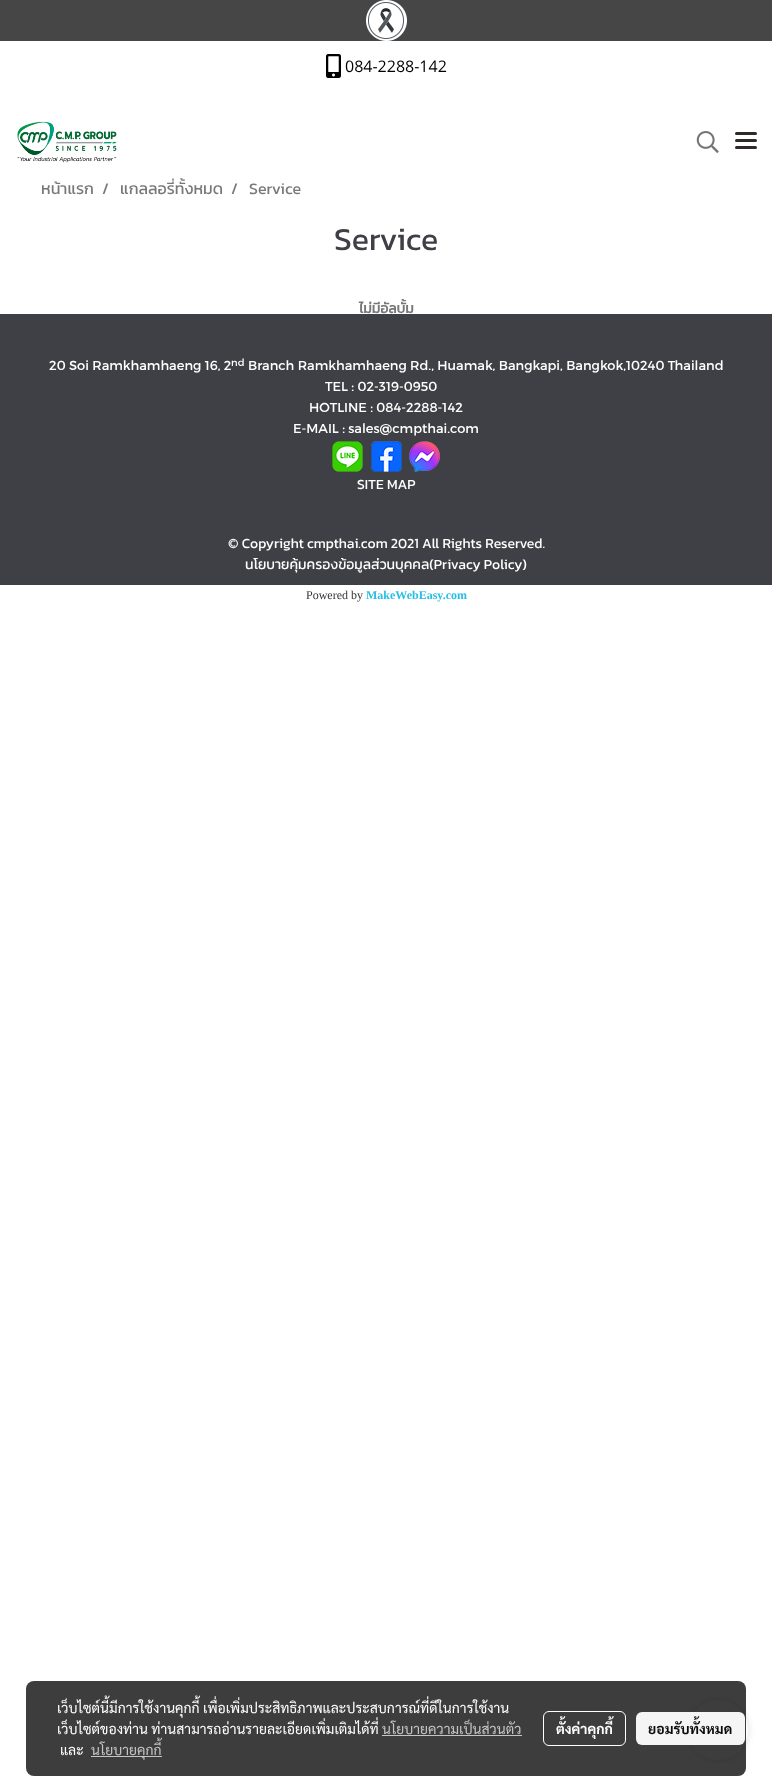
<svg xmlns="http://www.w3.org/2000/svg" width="772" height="1784">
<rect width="100%" height="100%" fill="#fff"/>
<rect width="772" height="41" fill="#464646"/>
<image x="366" y="0" width="41" height="41" href="media/1.png"/>
<image x="326" y="54" width="15" height="24" href="media/2.png"/>
<text x="345" y="72" style="font-family:Open Sans;font-size:16px;fill:#000">084-2288-142</text>
<image x="17" y="121" width="100" height="42" href="media/3.png"/>
<image x="696" y="131" width="23" height="22" href="media/4.png"/>
<rect x="735" y="139" width="22" height="3" rx="1.5" fill="#2d2a29"/>
<rect x="735" y="132" width="22" height="3" rx="1.5" fill="#2d2a29"/>
<rect x="735" y="146" width="22" height="3" rx="1.5" fill="#2d2a29"/>
<text x="41" y="194" style="font-family:Kanit;font-size:16px;fill:#787878">หน้าแรก</text>
<text x="102" y="194" style="font-family:Kanit;font-size:16px;fill:#787878">/</text>
<text x="120" y="194" style="font-family:Kanit;font-size:16px;fill:#787878">แกลลอรี่ทั้งหมด</text>
<text x="231" y="194" style="font-family:Kanit;font-size:16px;fill:#787878">/</text>
<text x="249" y="194" style="font-family:Kanit;font-size:16px;fill:#787878">Service</text>
<text x="334" y="250" style="font-family:Kanit;font-size:32px;fill:#3f4046">Service</text>
<text x="359" y="313" style="font-family:Kanit;font-size:14px;font-weight:bold;fill:#787878">ไม่มีอัลบั้ม</text>
<rect y="314" width="772" height="271" fill="#3f4046"/>
<text x="49" y="370" style="font-family:Montserrat;font-size:13px;fill:#fff">20 Soi Ramkhamhaeng 16, 2</text>
<text x="231" y="366" style="font-family:Montserrat;font-size:10px;fill:#fff">nd</text>
<text x="248" y="370" style="font-family:Montserrat;font-size:13px;fill:#fff">Branch Ramkhamhaeng Rd., Huamak, Bangkapi, Bangkok,10240 Thailand</text>
<text x="325" y="391" style="font-family:Montserrat;font-size:13px;fill:#fff">TEL : 02-319-0950</text>
<text x="309" y="412" style="font-family:Montserrat;font-size:13px;fill:#fff">HOTLINE : 084-2288-142</text>
<text x="293" y="433" style="font-family:Montserrat;font-size:13px;fill:#fff">E-MAIL : sales@cmpthai.com</text>
<image x="332" y="441" width="31" height="31" href="media/5.png"/>
<image x="371" y="441" width="31" height="31" href="media/6.png"/>
<image x="409" y="441" width="31" height="31" href="media/7.png"/>
<text x="357" y="489" style="font-family:Kanit;font-size:14px;fill:#fff">SITE MAP</text>
<text x="228" y="548" style="font-family:Kanit;font-size:14px;fill:#fff">© Copyright cmpthai.com 2021 All Rights Reserved.</text>
<text x="245" y="569" style="font-family:Kanit;font-size:14px;fill:#fff">นโยบายคุ้มครองข้อมูลส่วนบุคคล(Privacy Policy)</text>
<text x="306" y="599" style="font-family:Liberation Serif;font-size:12px;fill:#353535">Powered by</text>
<text x="366" y="599" style="font-family:Liberation Serif;font-size:12px;font-weight:bold;fill:#28bee3">MakeWebEasy.com</text>
<rect x="688" y="1700" width="60" height="60" rx="30" fill="#00000024" filter="blur(3.5px)"/>
<circle cx="718" cy="1730" r="30" fill="#fff"/>
<rect x="26" y="1681" width="720" height="95" rx="8" fill="#000000c2"/>
<text x="57" y="1713" style="font-family:Sarabun;font-size:14px;fill:#fff">เว็บไซต์นี้มีการใช้งานคุกกี้ เพื่อเพิ่มประสิทธิภาพและประสบการณ์ที่ดีในการใช้งาน</text>
<text x="57" y="1734" style="font-family:Sarabun;font-size:14px;fill:#fff">เว็บไซต์ของท่าน ท่านสามารถอ่านรายละเอียดเพิ่มเติมได้ที่</text>
<text x="382" y="1734" style="font-family:Sarabun;font-size:14px;fill:#c5c5c5">นโยบายความเป็นส่วนตัว</text>
<rect x="382" y="1735" width="140" height="1" fill="#c5c5c5"/>
<text x="60" y="1755" style="font-family:Sarabun;font-size:14px;fill:#fff">และ</text>
<rect x="91" y="1756" width="71" height="1" fill="#c5c5c5"/>
<text x="91" y="1755" style="font-family:Sarabun;font-size:14px;fill:#c5c5c5">นโยบายคุกกี้</text>
<rect x="543.5" y="1711.5" width="82" height="34" rx="5.5" fill="none" stroke="#fff"/>
<text x="556" y="1734" style="font-family:Sarabun;font-size:14px;font-weight:bold;fill:#fff">ตั้งค่าคุกกี้</text>
<rect x="636" y="1712" width="109" height="33" rx="6" fill="#fffffff2"/>
<text x="648" y="1734" style="font-family:Sarabun;font-size:14px;font-weight:bold;fill:#0c0c0c">ยอมรับทั้งหมด</text>
</svg>
